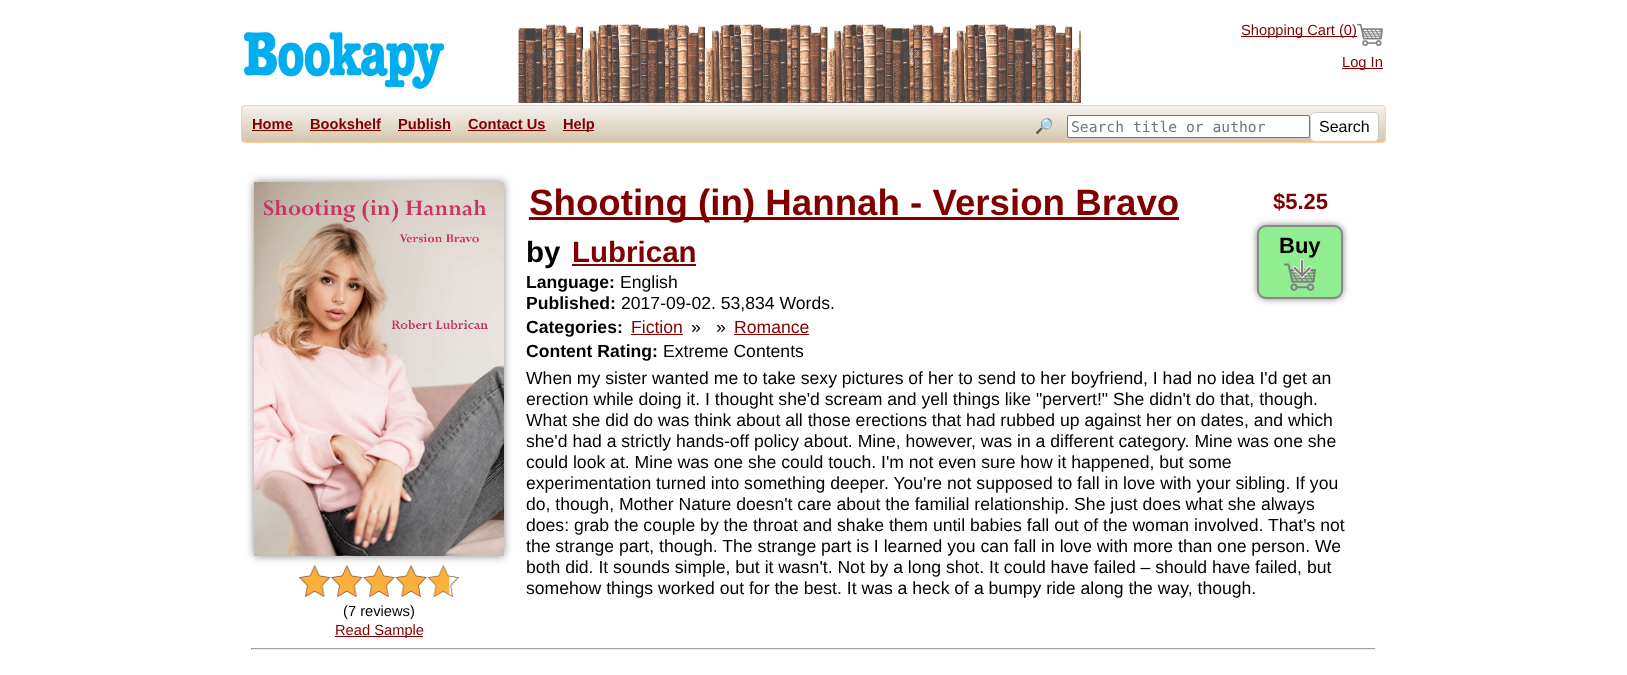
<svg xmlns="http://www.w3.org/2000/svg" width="1627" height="675">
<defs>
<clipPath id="clip1"><rect x="241" y="105" width="1145" height="38" rx="4"/></clipPath>
<linearGradient id="g1" gradientUnits="userSpaceOnUse" x1="814" y1="106" x2="814" y2="142"><stop offset="0" stop-color="#f5f2ed"/><stop offset="1" stop-color="#d3c6ae"/></linearGradient>
</defs>
<rect width="100%" height="100%" fill="#fff"/>
<image x="518" y="24" width="563" height="79" href="media/1.png"/>
<image x="244" y="32" width="200" height="57" href="media/2.png"/>
<rect x="1241" y="36" width="102" height="1" fill="#800000"/>
<text x="1241" y="35" style="font-family:Liberation Sans;font-size:14.7px;fill:#800000">Shopping Cart (0</text>
<rect x="1343" y="36" width="14" height="1" fill="#800000"/>
<text x="1352" y="35" style="font-family:Liberation Sans;font-size:14.7px;fill:#800000">)</text>
<image x="1357" y="23" width="26" height="23" href="media/3.png"/>
<rect x="1342" y="68" width="41" height="1" fill="#800000"/>
<text x="1342" y="67" style="font-family:Liberation Sans;font-size:14.7px;fill:#800000">Log In</text>
<g clip-path="url(#clip1)">
<rect x="241" y="106" width="1145" height="36" fill="url(#g1)"/>
</g>
<rect x="241.5" y="105.5" width="1144" height="37" rx="3.5" fill="none" stroke="#ffd199"/>
<text x="252" y="129" style="font-family:Liberation Sans;font-size:14.7px;font-weight:bold;fill:#800000">Home</text>
<rect x="252" y="130" width="41" height="1" fill="#800000"/>
<text x="310" y="129" style="font-family:Liberation Sans;font-size:14.7px;font-weight:bold;fill:#800000">Bookshelf</text>
<rect x="310" y="130" width="71" height="1" fill="#800000"/>
<text x="398" y="129" style="font-family:Liberation Sans;font-size:14.7px;font-weight:bold;fill:#800000">Publish</text>
<rect x="398" y="130" width="53" height="1" fill="#800000"/>
<text x="468" y="129" style="font-family:Liberation Sans;font-size:14.7px;font-weight:bold;fill:#800000">Contact Us</text>
<rect x="468" y="130" width="78" height="1" fill="#800000"/>
<rect x="563" y="130" width="31" height="1" fill="#800000"/>
<text x="563" y="129" style="font-family:Liberation Sans;font-size:14.7px;font-weight:bold;fill:#800000">Help</text>
<text x="1035" y="131" style="font-family:Noto Color Emoji;font-size:14.7px;font-weight:bold;fill:#800000">🔎</text>
<rect x="1067.5" y="115.5" width="242" height="22" rx="1.5" fill="#fff" stroke="#767676"/>
<text x="1071" y="132" style="font-family:DejaVu Sans Mono;font-size:14.7px;fill:#757575">Search title or author</text>
<rect x="1310.5" y="112.5" width="68" height="29" rx="4.5" fill="#fff" stroke="#ccc"/>
<text x="1319" y="132" style="font-family:Liberation Sans;font-size:16px;fill:#000">Search</text>
<rect x="529" y="217" width="650" height="3" fill="#800000"/>
<text x="529" y="215" style="font-family:Liberation Sans;font-size:36.7px;font-weight:bold;fill:#800000">Shooting (in) Hannah - Version Bravo</text>
<text x="1273" y="209" style="font-family:Liberation Sans;font-size:22px;font-weight:bold;fill:#800000">$5.25</text>
<rect x="1257" y="225" width="86" height="74" rx="9" fill="#888" filter="blur(3.5px)"/>
<rect x="1258" y="226" width="84" height="72" rx="8" fill="#90ee90" stroke="#888" stroke-width="2"/>
<text x="1279" y="253" style="font-family:Liberation Sans;font-size:22px;font-weight:bold;fill:#000">Buy</text>
<image x="1284" y="259" width="32" height="32" href="media/4.png"/>
<text x="526" y="262" style="font-family:Liberation Sans;font-size:29.5px;font-weight:bold;fill:#000">by</text>
<text x="572" y="262" style="font-family:Liberation Sans;font-size:29.5px;font-weight:bold;fill:#800000">Lubrican</text>
<rect x="572" y="264" width="124" height="2" fill="#800000"/>
<text x="526" y="288" style="font-family:Liberation Sans;font-size:17.6px;font-weight:bold;fill:#000">Language:</text>
<text x="620" y="288" style="font-family:Liberation Sans;font-size:17.6px;fill:#000">English</text>
<text x="526" y="309" style="font-family:Liberation Sans;font-size:17.6px;font-weight:bold;fill:#000">Published:</text>
<text x="621" y="309" style="font-family:Liberation Sans;font-size:17.6px;fill:#000">2017-09-02. 53,834 Words.</text>
<text x="526" y="333" style="font-family:Liberation Sans;font-size:17.6px;font-weight:bold;fill:#000">Categories:</text>
<text x="631" y="333" style="font-family:Liberation Sans;font-size:17.6px;fill:#800000">Fiction</text>
<rect x="631" y="334" width="52" height="1" fill="#800000"/>
<text x="691" y="333" style="font-family:Liberation Sans;font-size:17.6px;fill:#000">»</text>
<text x="716" y="333" style="font-family:Liberation Sans;font-size:17.6px;fill:#000">»</text>
<text x="734" y="333" style="font-family:Liberation Sans;font-size:17.6px;fill:#800000">Romance</text>
<rect x="734" y="334" width="75" height="1" fill="#800000"/>
<text x="526" y="357" style="font-family:Liberation Sans;font-size:17.6px;font-weight:bold;fill:#000">Content Rating:</text>
<text x="663" y="357" style="font-family:Liberation Sans;font-size:17.6px;fill:#000">Extreme Contents</text>
<text x="526" y="384" style="font-family:Liberation Sans;font-size:17.6px;fill:#000">When my sister wanted me to take sexy pictures of her to send to her boyfriend, I had no idea I'd get an</text>
<text x="526" y="405" style="font-family:Liberation Sans;font-size:17.6px;fill:#000">erection while doing it. I thought she'd scream and yell things like "pervert!" She didn't do that, though.</text>
<text x="526" y="426" style="font-family:Liberation Sans;font-size:17.6px;fill:#000">What she did do was think about all those erections that had rubbed up against her on dates, and which</text>
<text x="526" y="447" style="font-family:Liberation Sans;font-size:17.6px;fill:#000">she'd had a strictly hands-off policy about. Mine, however, was in a different category. Mine was one she</text>
<text x="526" y="468" style="font-family:Liberation Sans;font-size:17.6px;fill:#000">could look at. Mine was one she could touch. I'm not even sure how it happened, but some</text>
<text x="526" y="489" style="font-family:Liberation Sans;font-size:17.6px;fill:#000">experimentation turned into something deeper. You're not supposed to fall in love with your sibling. If you</text>
<text x="526" y="510" style="font-family:Liberation Sans;font-size:17.6px;fill:#000">do, though, Mother Nature doesn't care about the familial relationship. She just does what she always</text>
<text x="526" y="531" style="font-family:Liberation Sans;font-size:17.6px;fill:#000">does: grab the couple by the throat and shake them until babies fall out of the woman involved. That's not</text>
<text x="526" y="552" style="font-family:Liberation Sans;font-size:17.6px;fill:#000">the strange part, though. The strange part is I learned you can fall in love with more than one person. We</text>
<text x="526" y="573" style="font-family:Liberation Sans;font-size:17.6px;fill:#000">both did. It sounds simple, but it wasn't. Not by a long shot. It could have failed – should have failed, but</text>
<text x="526" y="594" style="font-family:Liberation Sans;font-size:17.6px;fill:#000">somehow things worked out for the best. It was a heck of a bumpy ride along the way, though.</text>
<rect x="254" y="182" width="250" height="374" fill="#888" filter="blur(4.5px)"/>
<image x="254" y="182" width="250" height="374" href="media/5.png"/>
<image x="299" y="565" width="160" height="32" href="media/6.png"/>
<text x="343" y="616" style="font-family:Liberation Sans;font-size:14.7px;fill:#000">(7 reviews)</text>
<rect x="335" y="636" width="88" height="1" fill="#800000"/>
<text x="335" y="635" style="font-family:Liberation Sans;font-size:14.7px;fill:#800000">Read Sample</text>
<rect x="251" y="648" width="1125" height="1" fill="#9f9f9f"/>
<rect x="1375" y="648" width="1" height="2" fill="#eee"/>
<rect x="251" y="649" width="1125" height="1" fill="#eee"/>
<rect x="251" y="648" width="1" height="2" fill="#9f9f9f"/>
</svg>
